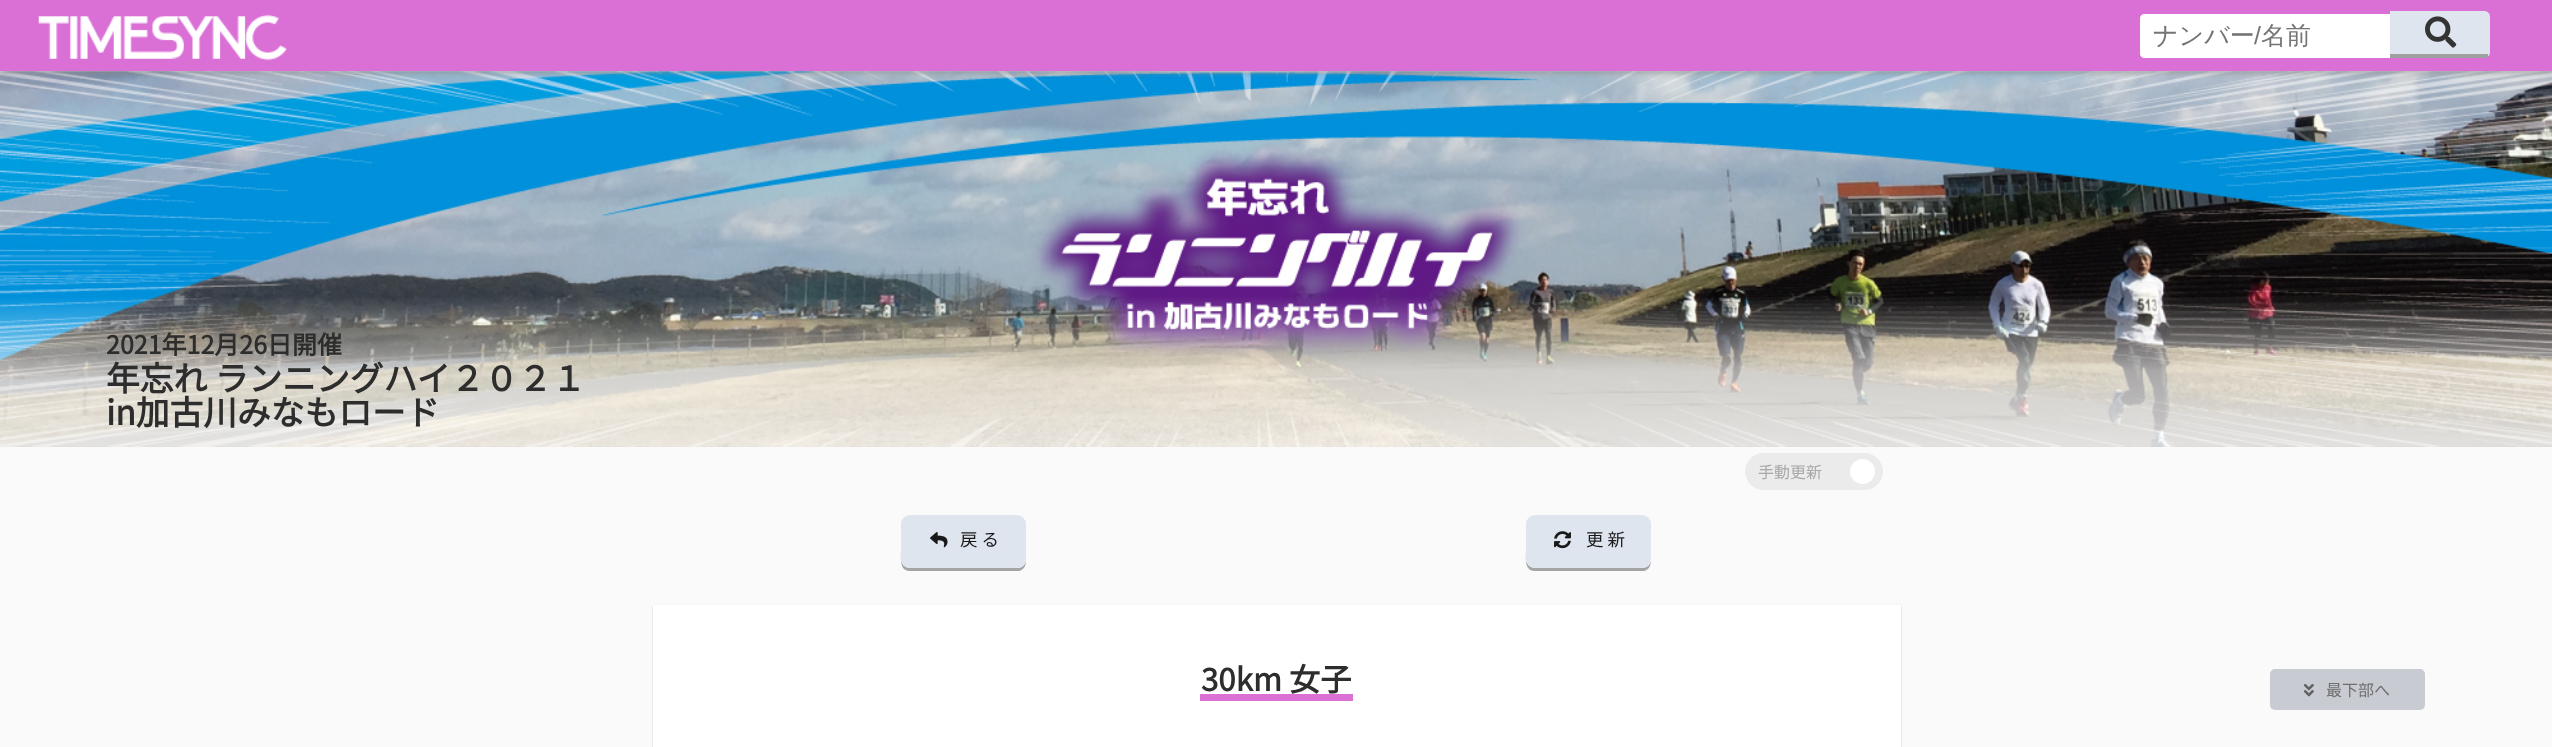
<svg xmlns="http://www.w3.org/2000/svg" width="2552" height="747">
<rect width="100%" height="100%" fill="#fafafa"/>
<image x="0" y="71" width="2552" height="376" href="media/3.png"/>
<rect y="3" width="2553" height="71" fill="#88888880" filter="blur(2px)"/>
<rect width="2552" height="71" fill="#da70d6"/>
<image x="38" y="14" width="249" height="47" href="media/1.png"/>
<path d="M2144 14h246v44h-246c-2 0-4-2-4-4v-36c0-2 2-4 4-4z" fill="#fff"/>
<text x="2153" y="44" style="font-family:WenQuanYi Zen Hei;font-size:25px;font-weight:500;fill:#757575">ナンバー</text>
<text x="2254" y="44" style="font-family:Liberation Sans;font-size:25px;fill:#757575">/</text>
<text x="2261" y="44" style="font-family:WenQuanYi Zen Hei;font-size:25px;font-weight:500;fill:#757575">名前</text>
<path d="M2390 11h94c3.5 0 6 2.5 6 6v35c0 3.5-2.5 6-6 6h-94z" fill="#dfe5ef"/>
<rect x="2390" y="54" width="98" height="4" fill="#9f9f9f"/>
<image x="2425" y="16" width="32" height="32" href="media/2.png"/>
<text x="106" y="354" style="font-family:Noto Sans JP;font-size:25px;font-weight:bold;fill:#2d2d2d">2021年12月26日開催</text>
<text x="106" y="391" style="font-family:Noto Sans JP;font-size:33.75px;font-weight:bold;fill:#2d2d2d">年忘れ ランニングハイ２０２１</text>
<text x="106" y="425" style="font-family:Noto Sans JP;font-size:33.75px;font-weight:bold;fill:#2d2d2d">in加古川みなもロード</text>
<rect x="1745" y="453" width="138" height="37" rx="18.5" fill="#ebebeb"/>
<text x="1758" y="478" style="font-family:Noto Sans JP;font-size:16px;font-weight:100;fill:#a8a8a8">手動更新</text>
<circle cx="1862.5" cy="471.5" r="12.5" fill="#fff"/>
<path d="M901 526v25c0 7-2 20 9 20h109c5-1 7-6 7-10c-1 4-4 7-8 7h-108c-5 0-9-4-9-9z" fill="#a4a4a4"/>
<rect x="901" y="515" width="125" height="53" rx="9" fill="#dfe5ef"/>
<image x="930" y="532" width="18" height="16" href="media/4.png"/>
<text x="960" y="546" style="font-family:Noto Sans JP;font-size:17.5px;font-weight:100;fill:#191919">戻 る</text>
<path d="M1526 526v25c0 7-2 20 9 20h109c5-1 7-6 7-10c-1 4-4 7-9 7h-107c-5 0-9-4-9-9z" fill="#a4a4a4"/>
<rect x="1526" y="515" width="125" height="53" rx="9" fill="#dfe5ef"/>
<image x="1554" y="531" width="17" height="18" href="media/5.png"/>
<text x="1586" y="546" style="font-family:Noto Sans JP;font-size:17.5px;font-weight:100;fill:#191919">更 新</text>
<rect x="653" y="606" width="1248" height="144" fill="#00000026" filter="blur(1px)"/>
<rect x="653" y="605" width="1248" height="142" fill="#fff"/>
<text x="1201" y="691" style="font-family:Noto Sans JP;font-size:31.25px;font-weight:bold;fill:#2d2d2d">30km 女子</text>
<rect x="1200" y="694" width="153" height="7" fill="#da70d6"/>
<rect x="2270" y="669" width="155" height="41" rx="5" fill="#c8cbd1"/>
<image x="2303" y="683" width="11" height="14" href="media/6.png"/>
<text x="2326" y="696" style="font-family:Noto Sans JP;font-size:16px;font-weight:100;fill:#6f6f6f">最下部へ</text>
</svg>
